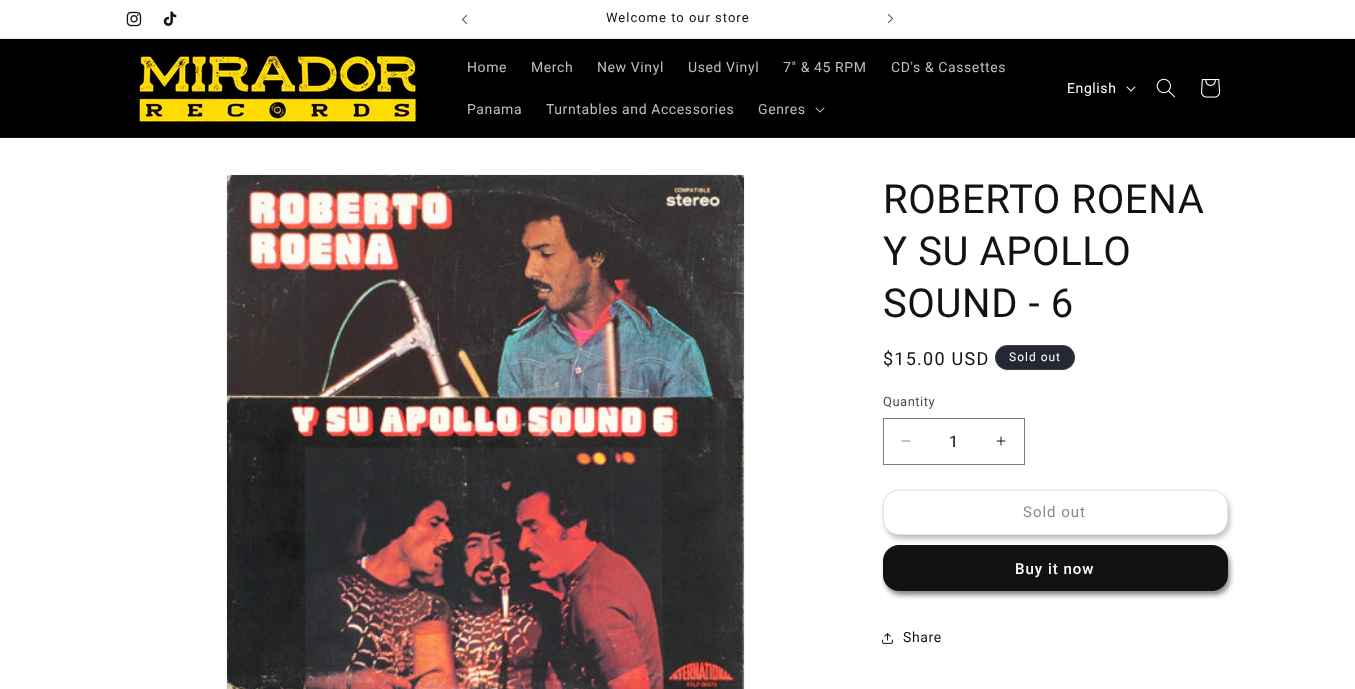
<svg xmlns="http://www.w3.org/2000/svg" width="1355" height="689">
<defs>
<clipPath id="clip1"><path d="M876 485h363v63h-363zm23 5h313c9 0 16 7 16 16v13c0 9-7 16-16 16h-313c-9 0-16-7-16-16v-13c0-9 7-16 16-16z" clip-rule="evenodd"/></clipPath>
</defs>
<rect width="100%" height="100%" fill="#fff"/>
<rect y="38" width="1355" height="1" fill="#ececec"/>
<image x="126" y="11" width="16" height="16" href="media/1.png"/>
<image x="163" y="11" width="14" height="15" href="media/2.png"/>
<image x="462" y="15" width="5" height="9" href="media/3.png"/>
<text x="606" y="22" style="font-family:Roboto;font-size:13px;letter-spacing:1px;fill:#121212">Welcome to our store</text>
<image x="888" y="14" width="5" height="9" href="media/4.png"/>
<rect y="39" width="1355" height="98" fill="#000"/>
<rect y="137" width="1355" height="1" fill="#141414"/>
<image x="136" y="54" width="281" height="73" href="media/5.png"/>
<text x="467" y="72" style="font-family:Roboto;font-size:14px;letter-spacing:0.6px;fill:#bfbfbf">Home</text>
<text x="531" y="72" style="font-family:Roboto;font-size:14px;letter-spacing:0.6px;fill:#bfbfbf">Merch</text>
<text x="597" y="72" style="font-family:Roboto;font-size:14px;letter-spacing:0.6px;fill:#bfbfbf">New Vinyl</text>
<text x="688" y="72" style="font-family:Roboto;font-size:14px;letter-spacing:0.6px;fill:#bfbfbf">Used Vinyl</text>
<text x="783" y="72" style="font-family:Roboto;font-size:14px;letter-spacing:0.6px;fill:#bfbfbf">7" &amp; 45 RPM</text>
<text x="891" y="72" style="font-family:Roboto;font-size:14px;letter-spacing:0.6px;fill:#bfbfbf">CD's &amp; Cassettes</text>
<text x="467" y="114" style="font-family:Roboto;font-size:14px;letter-spacing:0.6px;fill:#bfbfbf">Panama</text>
<text x="546" y="114" style="font-family:Roboto;font-size:14px;letter-spacing:0.6px;fill:#bfbfbf">Turntables and Accessories</text>
<text x="758" y="114" style="font-family:Roboto;font-size:14px;letter-spacing:0.6px;fill:#bfbfbf">Genres</text>
<image x="815" y="107" width="10" height="6" href="media/6.png"/>
<text x="1067" y="93" style="font-family:Roboto;font-size:14px;letter-spacing:0.6px;fill:#fff">English</text>
<image x="1126" y="86" width="10" height="6" href="media/7.png"/>
<image x="1156" y="78" width="19" height="20" href="media/8.png"/>
<image x="1201" y="79" width="20" height="19" href="media/9.png"/>
<rect x="226.5" y="174.5" width="518" height="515" fill="none" stroke="#f3f3f3"/>
<image x="227" y="175" width="517" height="514" href="media/10.png"/>
<text x="883" y="213" style="font-family:Roboto;font-size:40px;letter-spacing:0.6px;fill:#121212">ROBERTO ROENA</text>
<text x="883" y="265" style="font-family:Roboto;font-size:40px;letter-spacing:0.6px;fill:#121212">Y SU APOLLO</text>
<text x="883" y="317" style="font-family:Roboto;font-size:40px;letter-spacing:0.6px;fill:#121212">SOUND - 6</text>
<text x="883" y="365" style="font-family:Roboto;font-size:18px;letter-spacing:1.25px;fill:#121212">$15.00 USD</text>
<rect x="995" y="345" width="80" height="25" rx="12.5" fill="#242833"/>
<rect x="995.5" y="345.5" width="79" height="24" rx="12" fill="none" stroke="#ffffff1a"/>
<text x="1009" y="361" style="font-family:Roboto;font-size:12px;letter-spacing:1px;fill:#fff">Sold out</text>
<text x="883" y="406" style="font-family:Roboto;font-size:13px;letter-spacing:0.5px;fill:#4d4d4d">Quantity</text>
<image x="901" y="440" width="10" height="2" href="media/11.png"/>
<image x="996" y="436" width="10" height="10" href="media/12.png"/>
<rect x="883.5" y="418.5" width="141" height="46" fill="none" stroke="#7d7d7d"/>
<text x="949" y="447" style="font-family:Roboto;font-size:16px;font-weight:500;fill:#363636">1</text>
<g clip-path="url(#clip1)">
<rect x="885" y="494" width="345" height="45" rx="16" fill="#88888880" filter="blur(2.5px)"/>
</g>
<rect x="883.15" y="490.15" width="344.7" height="44.7" rx="15.85" fill="none" stroke="#898989" stroke-width="0.3"/>
<text x="1023" y="517" style="font-family:Roboto;font-size:15px;letter-spacing:1px;fill:#898989">Sold out</text>
<rect x="885" y="549" width="345" height="46" rx="16" fill="#12121280" filter="blur(2.5px)"/>
<rect x="883" y="545" width="345" height="46" rx="16" fill="#121212"/>
<text x="1015" y="574" style="font-family:Roboto;font-size:15px;font-weight:500;letter-spacing:1px;fill:#fff">Buy it now</text>
<image x="882" y="633" width="11" height="11" href="media/13.png"/>
<text x="903" y="642" style="font-family:Roboto;font-size:14px;letter-spacing:0.6px;fill:#121212">Share</text>
</svg>
